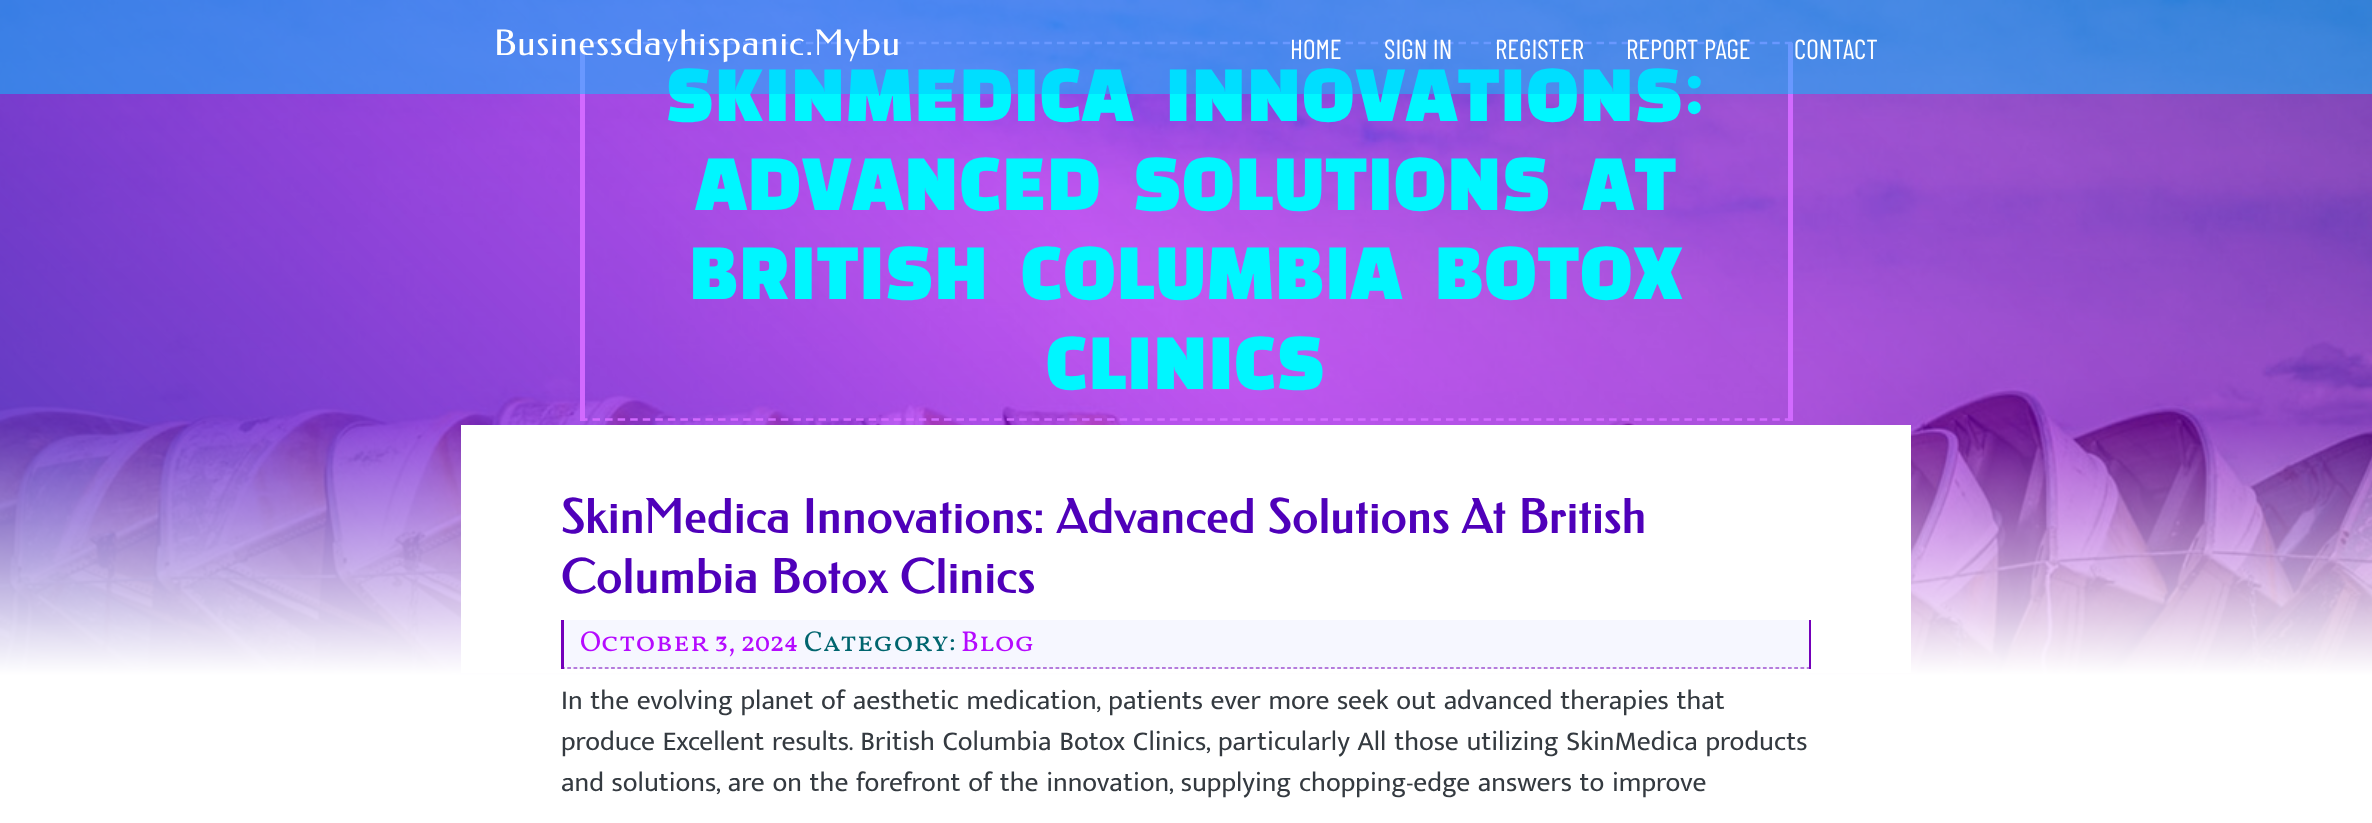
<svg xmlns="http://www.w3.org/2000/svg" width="2372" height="823">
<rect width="100%" height="100%" fill="#fff"/>
<image x="0" y="0" width="2372" height="675" href="media/1.png"/>
<path d="M580 43h1212.5" fill="none" stroke="#d26aff" stroke-width="2.5" stroke-dasharray="7.5 5.05"/>
<rect x="1788" y="43" width="5" height="378" fill="#d26aff"/>
<path d="M580 419.5h1212.5" fill="none" stroke="#d26aff" stroke-width="2.5" stroke-dasharray="7.5 5.05"/>
<rect x="580" y="43" width="5" height="378" fill="#d26aff"/>
<text x="666" y="121" word-spacing="10" style="font-family:Black Han Sans;font-size:68.75px;font-weight:900;letter-spacing:1.25px;fill:#00f6ff">SKINMEDICA INNOVATIONS:</text>
<rect width="2372" height="94" fill="#00c6ff80"/>
<text x="494" y="55" style="font-family:Federo;font-size:35px;letter-spacing:1.25px;fill:#fff">Businessdayhispanic.Mybu</text>
<text x="1290" y="59" style="font-family:Barlow Condensed;font-size:27.5px;fill:#fff">HOME</text>
<text x="1384" y="59" style="font-family:Barlow Condensed;font-size:27.5px;fill:#fff">SIGN IN</text>
<text x="1495" y="59" style="font-family:Barlow Condensed;font-size:27.5px;fill:#fff">REGISTER</text>
<text x="1626" y="59" style="font-family:Barlow Condensed;font-size:27.5px;fill:#fff">REPORT PAGE</text>
<text x="1794" y="59" style="font-family:Barlow Condensed;font-size:27.5px;fill:#fff">CONTACT</text>
<text x="696" y="210" word-spacing="10" style="font-family:Black Han Sans;font-size:68.75px;font-weight:900;letter-spacing:1.25px;fill:#00f6ff">ADVANCED SOLUTIONS AT</text>
<text x="689" y="299" word-spacing="10" style="font-family:Black Han Sans;font-size:68.75px;font-weight:900;letter-spacing:1.25px;fill:#00f6ff">BRITISH COLUMBIA BOTOX</text>
<text x="1046" y="389" style="font-family:Black Han Sans;font-size:68.75px;font-weight:900;letter-spacing:1.25px;fill:#00f6ff">CLINICS</text>
<rect x="461" y="425" width="1450" height="248" fill="#fff"/>
<text x="561" y="533" style="font-family:Federo;font-size:46.25px;font-weight:bold;letter-spacing:1.25px;fill:#4f00ba">SkinMedica Innovations: Advanced Solutions At British</text>
<text x="561" y="593" style="font-family:Federo;font-size:46.25px;font-weight:bold;letter-spacing:1.25px;fill:#4f00ba">Columbia Botox Clinics</text>
<rect x="564" y="620" width="1245" height="49" fill="#f6f7ff"/>
<rect x="1809" y="620" width="2" height="49" fill="#7400ba"/>
<path d="M561 668h1250" fill="none" stroke="#7400ba" stroke-width="1.2" stroke-dasharray="3.75 2.51"/>
<rect x="561" y="620" width="3" height="49" fill="#7400ba"/>
<text x="580" y="651" style="font-family:Vollkorn SC;font-size:28.75px;fill:#b50aff">October 3, 2024</text>
<text x="804" y="651" style="font-family:Vollkorn SC;font-size:28.75px;fill:#00656e">Category:</text>
<text x="961" y="651" style="font-family:Vollkorn SC;font-size:28.75px;fill:#b50aff">Blog</text>
<text x="561" y="709" style="font-family:Mukta Malar;font-size:27.5px;fill:#343a40">In the evolving planet of aesthetic medication, patients ever more seek out advanced therapies that</text>
<text x="561" y="750" style="font-family:Mukta Malar;font-size:27.5px;fill:#343a40">produce Excellent results. British Columbia Botox Clinics, particularly All those utilizing SkinMedica products</text>
<text x="561" y="791" style="font-family:Mukta Malar;font-size:27.5px;fill:#343a40">and solutions, are on the forefront of the innovation, supplying chopping-edge answers to improve</text>
</svg>
